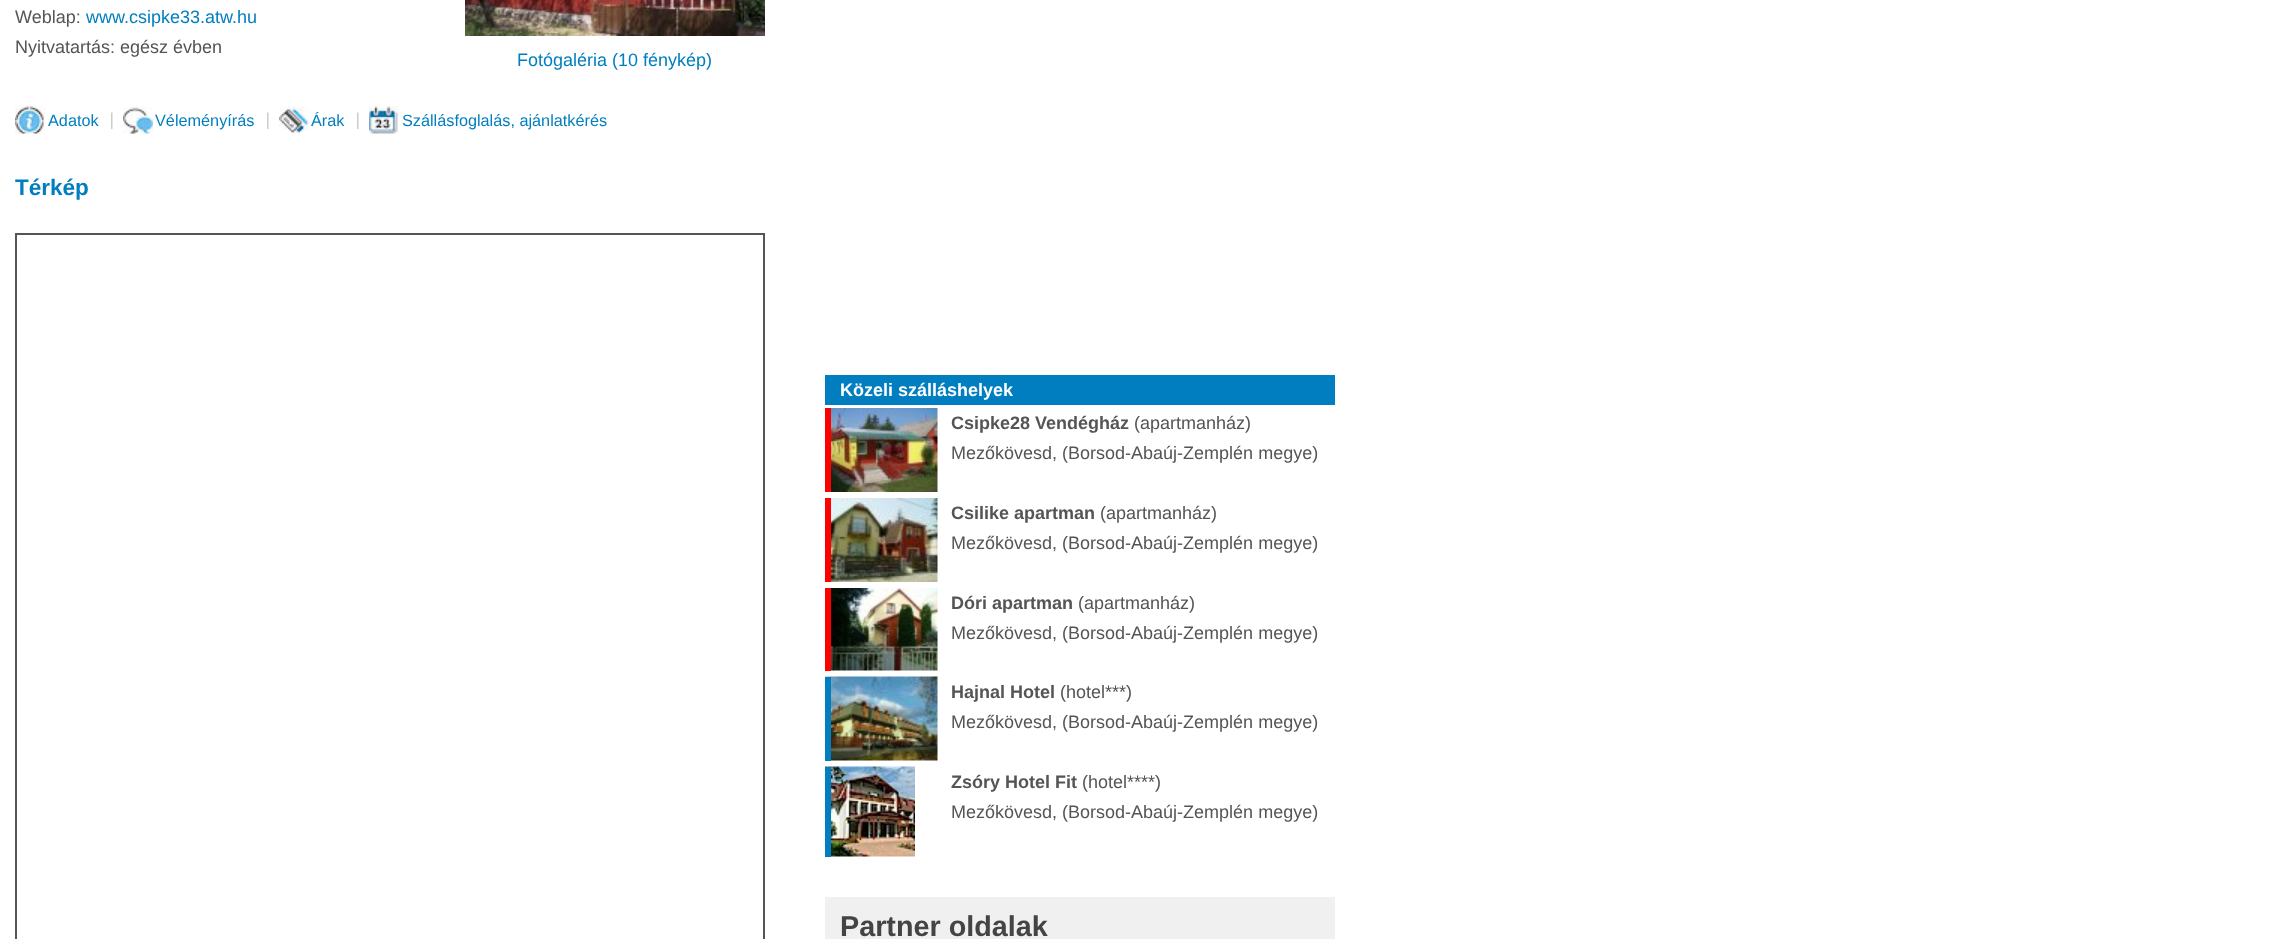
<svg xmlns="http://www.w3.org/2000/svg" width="2270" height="939">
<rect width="100%" height="100%" fill="#fff"/>
<text x="15" y="23" style="font-family:Liberation Sans;font-size:18px;fill:#555">Weblap:</text>
<text x="86" y="23" style="font-family:Liberation Sans;font-size:18px;fill:#007ec0">www.csipke33.atw.hu</text>
<text x="15" y="53" style="font-family:Liberation Sans;font-size:18px;fill:#555">Nyitvatartás: egész évben</text>
<image x="465" y="0" width="300" height="36" href="media/1.png"/>
<text x="517" y="66" style="font-family:Liberation Sans;font-size:18px;fill:#007ec0">Fotógaléria (10 fénykép)</text>
<image x="15" y="106" width="30" height="28" href="media/2.png"/>
<text x="48" y="126" style="font-family:Liberation Sans;font-size:16.25px;fill:#007ec0">Adatok</text>
<image x="111" y="112" width="2" height="17" href="media/3.png"/>
<image x="123" y="106" width="30" height="28" href="media/4.png"/>
<text x="155" y="126" style="font-family:Liberation Sans;font-size:16.25px;fill:#007ec0">Véleményírás</text>
<image x="267" y="112" width="2" height="17" href="media/3.png"/>
<image x="279" y="106" width="30" height="28" href="media/5.png"/>
<text x="311" y="126" style="font-family:Liberation Sans;font-size:16.25px;fill:#007ec0">Árak</text>
<image x="357" y="112" width="2" height="17" href="media/3.png"/>
<image x="369" y="106" width="30" height="28" href="media/6.png"/>
<text x="402" y="126" style="font-family:Liberation Sans;font-size:16.25px;fill:#007ec0">Szállásfoglalás, ajánlatkérés</text>
<text x="15" y="195" style="font-family:Liberation Sans;font-size:22.5px;font-weight:bold;fill:#007ec0">Térkép</text>
<rect x="16" y="234" width="748" height="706" fill="none" stroke="#555" stroke-width="2"/>
<rect x="825" y="375" width="510" height="30" fill="#007ec0"/>
<text x="840" y="396" style="font-family:Liberation Sans;font-size:18px;font-weight:bold;fill:#fff">Közeli szálláshelyek</text>
<image x="831" y="408" width="107" height="84" href="media/7.png"/>
<rect x="825" y="408" width="6" height="84" fill="#f00"/>
<text x="951" y="429" style="font-family:Liberation Sans;font-size:18px;font-weight:bold;fill:#555">Csipke28 Vendégház</text>
<text x="1134" y="429" style="font-family:Liberation Sans;font-size:18px;fill:#555">(apartmanház)</text>
<text x="951" y="459" style="font-family:Liberation Sans;font-size:18px;fill:#555">Mezőkövesd, (Borsod-Abaúj-Zemplén megye)</text>
<image x="831" y="498" width="107" height="84" href="media/8.png"/>
<rect x="825" y="498" width="6" height="84" fill="#f00"/>
<text x="951" y="519" style="font-family:Liberation Sans;font-size:18px;font-weight:bold;fill:#555">Csilike apartman</text>
<text x="1100" y="519" style="font-family:Liberation Sans;font-size:18px;fill:#555">(apartmanház)</text>
<text x="951" y="549" style="font-family:Liberation Sans;font-size:18px;fill:#555">Mezőkövesd, (Borsod-Abaúj-Zemplén megye)</text>
<image x="831" y="588" width="107" height="83" href="media/9.png"/>
<rect x="825" y="588" width="6" height="83" fill="#f00"/>
<text x="951" y="609" style="font-family:Liberation Sans;font-size:18px;font-weight:bold;fill:#555">Dóri apartman</text>
<text x="1078" y="609" style="font-family:Liberation Sans;font-size:18px;fill:#555">(apartmanház)</text>
<text x="951" y="639" style="font-family:Liberation Sans;font-size:18px;fill:#555">Mezőkövesd, (Borsod-Abaúj-Zemplén megye)</text>
<image x="825" y="676" width="113" height="85" href="media/10.png"/>
<rect x="825" y="677" width="6" height="84" fill="#007ec0"/>
<text x="951" y="698" style="font-family:Liberation Sans;font-size:18px;font-weight:bold;fill:#555">Hajnal Hotel</text>
<text x="1060" y="698" style="font-family:Liberation Sans;font-size:18px;fill:#555">(hotel***)</text>
<text x="951" y="728" style="font-family:Liberation Sans;font-size:18px;fill:#555">Mezőkövesd, (Borsod-Abaúj-Zemplén megye)</text>
<image x="825" y="766" width="90" height="91" href="media/11.png"/>
<rect x="825" y="767" width="6" height="90" fill="#007ec0"/>
<text x="951" y="788" style="font-family:Liberation Sans;font-size:18px;font-weight:bold;fill:#555">Zsóry Hotel Fit</text>
<text x="1082" y="788" style="font-family:Liberation Sans;font-size:18px;fill:#555">(hotel****)</text>
<text x="951" y="818" style="font-family:Liberation Sans;font-size:18px;fill:#555">Mezőkövesd, (Borsod-Abaúj-Zemplén megye)</text>
<rect x="825" y="897" width="510" height="42" fill="#f0f0f0"/>
<text x="840" y="936" style="font-family:Liberation Sans;font-size:28.75px;font-weight:bold;fill:#444">Partner oldalak</text>
</svg>
